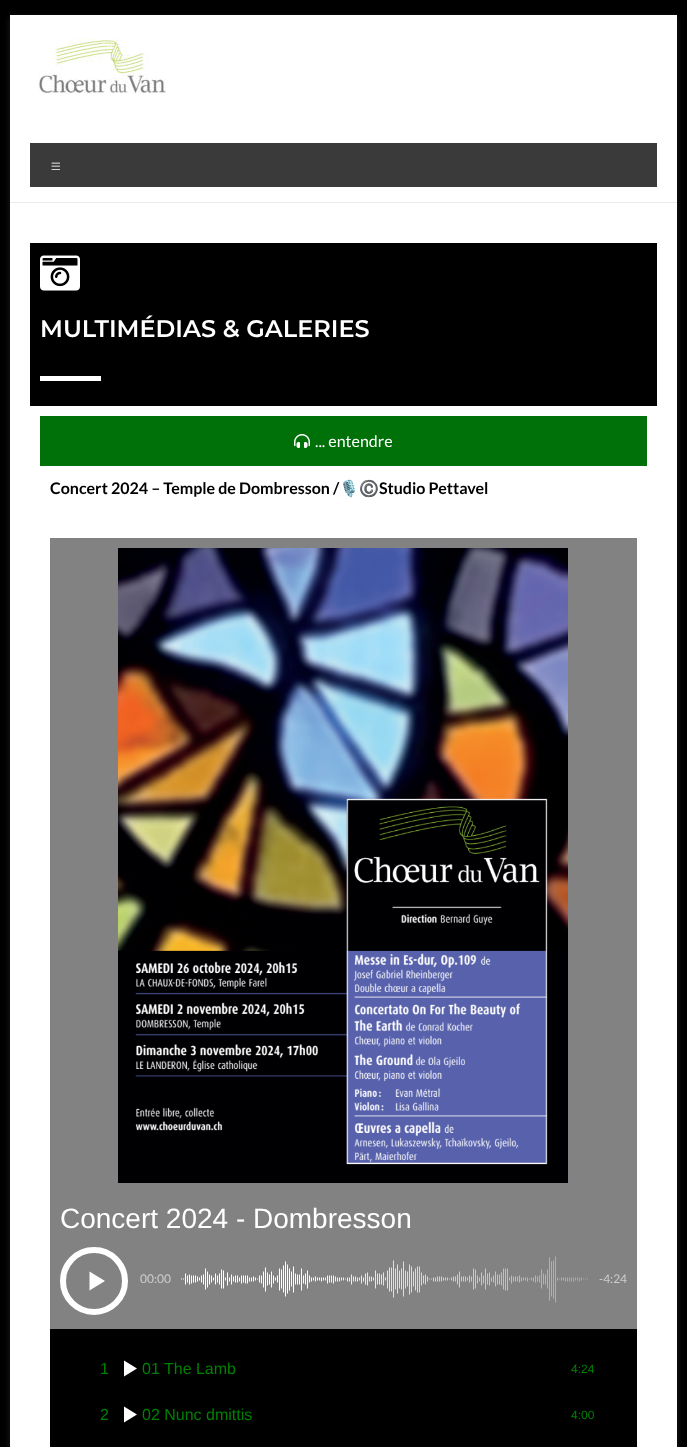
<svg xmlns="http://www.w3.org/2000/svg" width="687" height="1447">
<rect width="100%" height="100%" fill="#000"/>
<rect x="10" y="17" width="667" height="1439" fill="#6464644d" filter="blur(3px)"/>
<rect x="10" y="15" width="667" height="1432" fill="#fff"/>
<rect x="10" y="202" width="667" height="1" fill="#eaeaea"/>
<image x="38" y="38" width="128" height="56" href="media/1.png"/>
<rect x="30" y="143" width="627" height="44" fill="#3a3a3a"/>
<text x="50" y="173" style="font-family:Lato;font-size:20px;font-weight:300;fill:#fff">≡</text>
<rect x="30" y="243" width="627" height="163" fill="#000"/>
<image x="40" y="255" width="40" height="36" href="media/2.png"/>
<text x="40" y="337" style="font-family:Montserrat;font-size:24px;font-weight:600;fill:#fff">MULTIMÉDIAS &amp; GALERIES</text>
<rect x="40" y="376" width="61" height="5" fill="#fff"/>
<rect x="40" y="416" width="607" height="50" fill="#007009"/>
<image x="294" y="434" width="16" height="14" href="media/3.png"/>
<text x="315" y="447" style="font-family:Lato;font-size:16px;fill:#fff">... entendre</text>
<text x="50" y="494" style="font-family:Lato;font-size:16px;font-weight:bold;fill:#000">Concert 2024 – Temple de Dombresson /</text>
<text x="339" y="494" style="font-family:Noto Color Emoji;font-size:16px;font-weight:bold;fill:#000">🎙️©️</text>
<text x="379" y="494" style="font-family:Lato;font-size:16px;font-weight:bold;fill:#000">Studio Pettavel</text>
<rect x="50" y="538" width="587" height="791" fill="#828282"/>
<image x="118" y="548" width="450" height="635" href="media/4.png"/>
<text x="60" y="1228" style="font-family:Liberation Sans;font-size:28px;fill:#fff">Concert 2024 - Dombresson</text>
<circle cx="94" cy="1281" r="31" fill="none" stroke="#fff" stroke-width="6"/>
<path d="M89.5 1271.5l15.5 9.5l-15.5 9.5z" fill="#fff"/>
<text x="140" y="1283" style="font-family:Lato;font-size:12px;fill:#cdcdcd">00:00</text>
<image x="181" y="1256" width="407" height="47" href="media/5.png"/>
<text x="599" y="1283" style="font-family:Lato;font-size:12px;fill:#cdcdcd">-4:24</text>
<rect x="50" y="1329" width="587" height="118" fill="#000"/>
<text x="100" y="1374" style="font-family:Liberation Sans;font-size:16px;fill:#008000">1</text>
<path d="M124 1360.5l13 8l-13 8z" fill="#fff"/>
<text x="142" y="1374" style="font-family:Liberation Sans;font-size:16px;fill:#008000">01 The Lamb</text>
<text x="571" y="1373" style="font-family:Liberation Sans;font-size:12px;fill:#008000">4:24</text>
<text x="100" y="1420" style="font-family:Liberation Sans;font-size:16px;fill:#008000">2</text>
<path d="M124 1406.5l13 8l-13 8z" fill="#fff"/>
<text x="142" y="1420" style="font-family:Liberation Sans;font-size:16px;fill:#008000">02 Nunc dmittis</text>
<text x="571" y="1419" style="font-family:Liberation Sans;font-size:12px;fill:#008000">4:00</text>
</svg>
